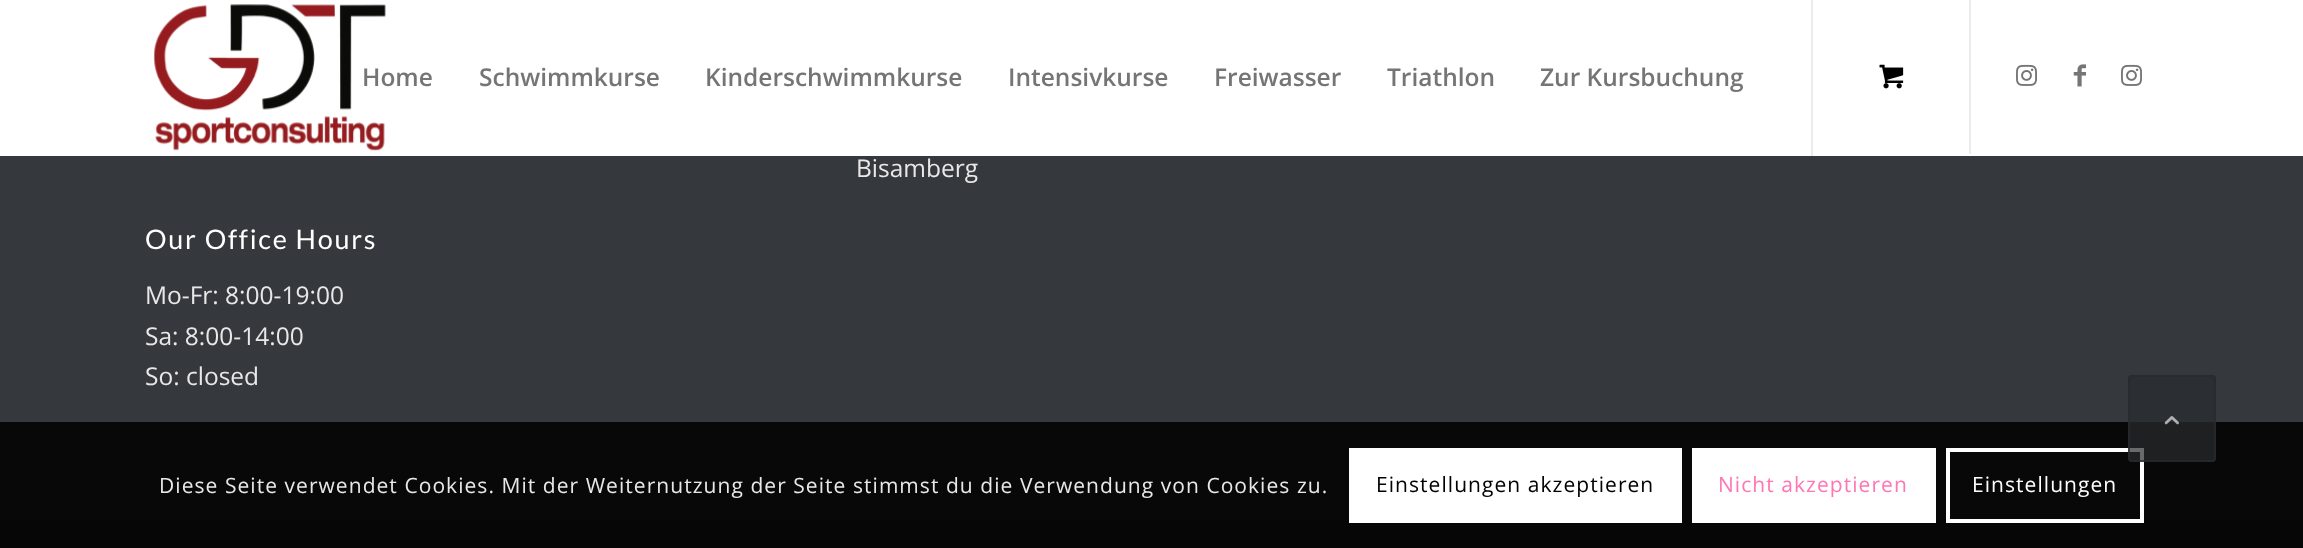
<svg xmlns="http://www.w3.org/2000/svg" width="2303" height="548">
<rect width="100%" height="100%" fill="#35383c"/>
<rect width="2303" height="156" fill="#fff"/>
<image x="153" y="4" width="233" height="147" href="media/1.png"/>
<rect x="1811" width="2" height="156" fill="#ebebeb"/>
<text x="362" y="86" style="font-family:Open Sans;font-size:24.5px;font-weight:600;fill:#757575">Home</text>
<text x="479" y="86" style="font-family:Open Sans;font-size:24.5px;font-weight:600;fill:#757575">Schwimmkurse</text>
<text x="705" y="86" style="font-family:Open Sans;font-size:24.5px;font-weight:600;fill:#757575">Kinderschwimmkurse</text>
<text x="1008" y="86" style="font-family:Open Sans;font-size:24.5px;font-weight:600;fill:#757575">Intensivkurse</text>
<text x="1214" y="86" style="font-family:Open Sans;font-size:24.5px;font-weight:600;fill:#757575">Freiwasser</text>
<text x="1387" y="86" style="font-family:Open Sans;font-size:24.5px;font-weight:600;fill:#757575">Triathlon</text>
<text x="1540" y="86" style="font-family:Open Sans;font-size:24.5px;font-weight:600;fill:#757575">Zur Kursbuchung</text>
<rect x="1969" width="2" height="154" fill="#ebebeb"/>
<image x="1879" y="64" width="25" height="25" href="media/2.png"/>
<image x="2016" y="64" width="21" height="22" href="media/3.png"/>
<image x="2073" y="64" width="13" height="23" href="media/4.png"/>
<image x="2121" y="64" width="21" height="22" href="media/3.png"/>
<rect y="422" width="2303" height="98" fill="#080809"/>
<text x="856" y="177" style="font-family:Open Sans;font-size:24.5px;fill:#e8e8e8">Bisamberg</text>
<text x="145" y="249" style="font-family:Lato;font-size:27px;letter-spacing:1.75px;fill:#fff">Our Office Hours</text>
<text x="145" y="304" style="font-family:Open Sans;font-size:24.5px;fill:#e8e8e8">Mo-Fr: 8:00-19:00</text>
<text x="145" y="345" style="font-family:Open Sans;font-size:24.5px;fill:#e8e8e8">Sa: 8:00-14:00</text>
<text x="145" y="385" style="font-family:Open Sans;font-size:24.5px;fill:#e8e8e8">So: closed</text>
<rect y="520" width="2303" height="28" fill="#060607"/>
<rect x="1948" y="450" width="194" height="71" fill="none" stroke="#fff" stroke-width="4"/>
<rect x="2128" y="375" width="88" height="87" rx="4" fill="#282b2eb3"/>
<rect x="2129" y="376" width="86" height="85" rx="3" fill="none" stroke="#282b2eb3" stroke-width="2"/>
<image x="2164" y="416" width="15" height="9" href="media/5.png"/>
<text x="159" y="493" style="font-family:Open Sans;font-size:21px;letter-spacing:1.05px;fill:#e8e8e8">Diese Seite verwendet Cookies. Mit der Weiternutzung der Seite stimmst du die Verwendung von Cookies zu.</text>
<rect x="1349" y="448" width="333" height="75" fill="#fff"/>
<text x="1376" y="492" style="font-family:Open Sans;font-size:21px;letter-spacing:1.05px;fill:#000">Einstellungen akzeptieren</text>
<rect x="1692" y="448" width="244" height="75" fill="#fff"/>
<text x="1718" y="492" style="font-family:Open Sans;font-size:21px;letter-spacing:1.05px;fill:#ff75b5">Nicht akzeptieren</text>
<text x="1972" y="492" style="font-family:Open Sans;font-size:21px;letter-spacing:1.05px;fill:#fff">Einstellungen</text>
</svg>
